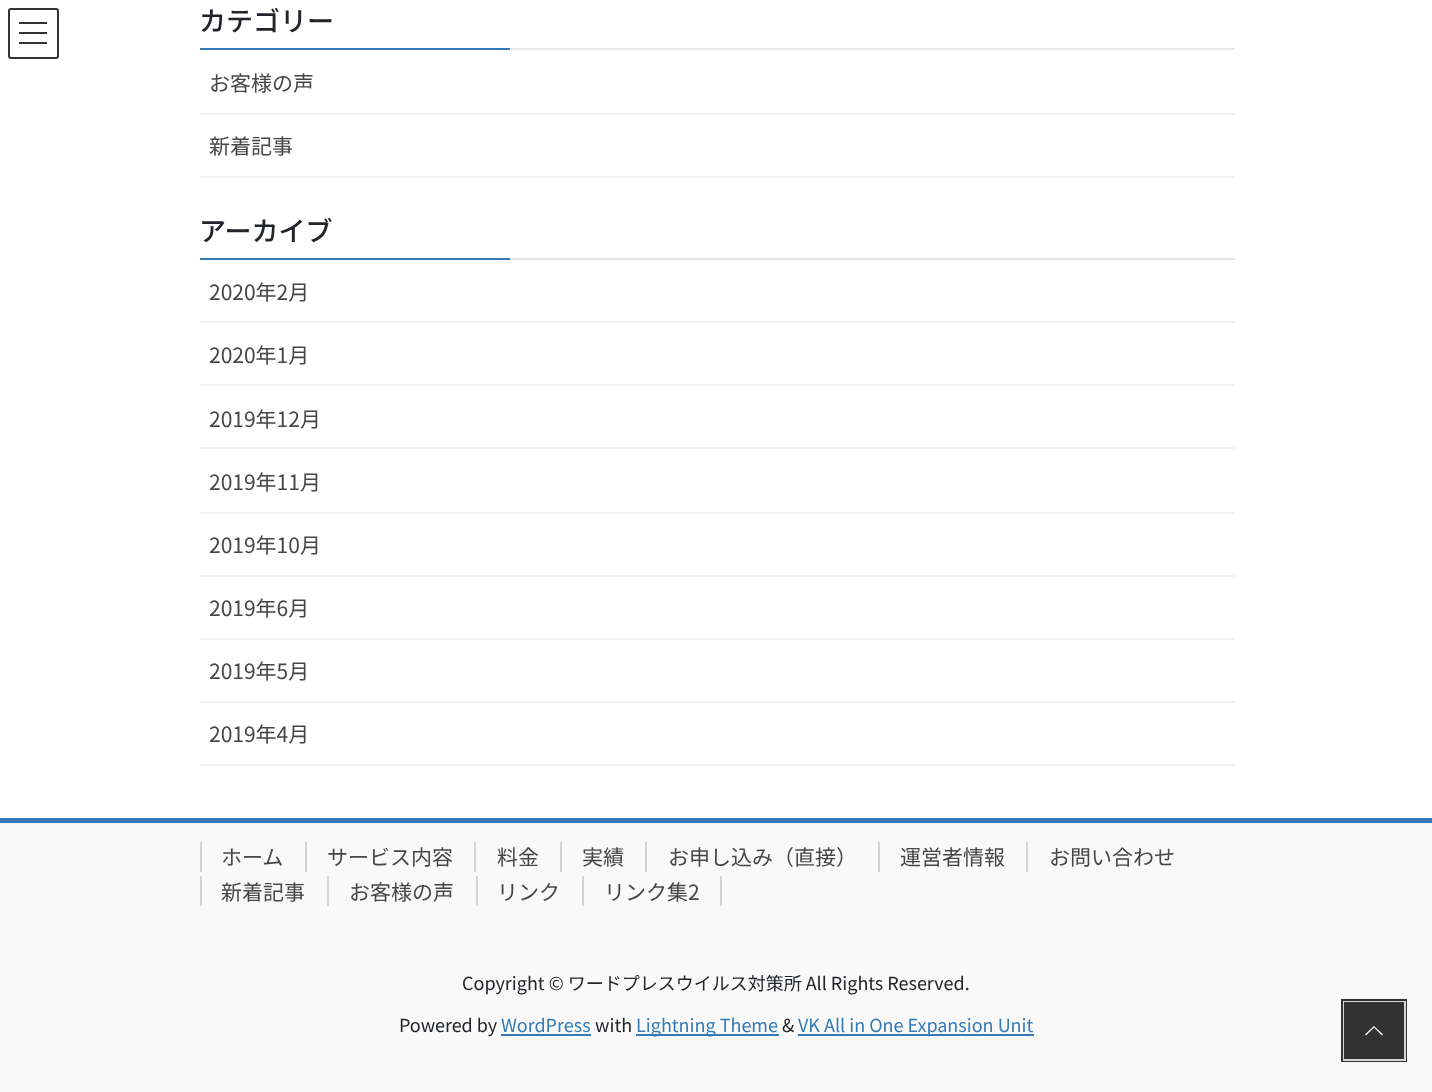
<svg xmlns="http://www.w3.org/2000/svg" width="1432" height="1092">
<rect width="100%" height="100%" fill="#fff"/>
<rect x="19" y="22" width="28" height="2" fill="#333"/>
<rect x="19" y="32" width="28" height="2" fill="#333"/>
<rect x="19" y="42" width="28" height="2" fill="#333"/>
<rect x="9" y="9" width="49" height="49" rx="2" fill="none" stroke="#333" stroke-width="2"/>
<rect x="510" y="48" width="725" height="2" fill="#e6e6e6"/>
<text x="199" y="31" style="font-family:Noto Sans JP;font-size:27px;font-weight:500;fill:#212529">カテゴリー</text>
<rect x="200" y="48" width="310" height="2" fill="#337ab7"/>
<rect x="200" y="113" width="1035" height="2" fill="#f2f2f2"/>
<text x="209" y="91" style="font-family:Noto Sans JP;font-size:21px;fill:#464646">お客様の声</text>
<rect x="200" y="176" width="1035" height="2" fill="#f2f2f2"/>
<text x="209" y="154" style="font-family:Noto Sans JP;font-size:21px;fill:#464646">新着記事</text>
<rect x="510" y="258" width="725" height="2" fill="#e6e6e6"/>
<text x="199" y="241" style="font-family:Noto Sans JP;font-size:27px;font-weight:500;fill:#212529">アーカイブ</text>
<rect x="200" y="258" width="310" height="2" fill="#337ab7"/>
<rect x="200" y="321" width="1035" height="2" fill="#f2f2f2"/>
<text x="209" y="300" style="font-family:Noto Sans JP;font-size:21px;fill:#464646">2020年2月</text>
<rect x="200" y="384" width="1035" height="2" fill="#f2f2f2"/>
<text x="209" y="363" style="font-family:Noto Sans JP;font-size:21px;fill:#464646">2020年1月</text>
<rect x="200" y="447" width="1035" height="2" fill="#f2f2f2"/>
<text x="209" y="427" style="font-family:Noto Sans JP;font-size:21px;fill:#464646">2019年12月</text>
<rect x="200" y="512" width="1035" height="2" fill="#f2f2f2"/>
<text x="209" y="490" style="font-family:Noto Sans JP;font-size:21px;fill:#464646">2019年11月</text>
<rect x="200" y="575" width="1035" height="2" fill="#f2f2f2"/>
<text x="209" y="553" style="font-family:Noto Sans JP;font-size:21px;fill:#464646">2019年10月</text>
<rect x="200" y="638" width="1035" height="2" fill="#f2f2f2"/>
<text x="209" y="616" style="font-family:Noto Sans JP;font-size:21px;fill:#464646">2019年6月</text>
<rect x="200" y="701" width="1035" height="2" fill="#f2f2f2"/>
<text x="209" y="679" style="font-family:Noto Sans JP;font-size:21px;fill:#464646">2019年5月</text>
<rect x="200" y="764" width="1035" height="2" fill="#f2f2f2"/>
<text x="209" y="742" style="font-family:Noto Sans JP;font-size:21px;fill:#464646">2019年4月</text>
<rect y="823" width="1432" height="269" fill="#f9f9f9"/>
<rect y="818" width="1432" height="5" fill="#337ab7"/>
<text x="221" y="865" style="font-family:Noto Sans JP;font-size:21px;fill:#464646">ホーム</text>
<rect x="200" y="842" width="2" height="30" fill="#d4d4d4"/>
<text x="327" y="865" style="font-family:Noto Sans JP;font-size:21px;fill:#464646">サービス内容</text>
<rect x="305" y="842" width="2" height="30" fill="#d4d4d4"/>
<text x="497" y="865" style="font-family:Noto Sans JP;font-size:21px;fill:#464646">料金</text>
<rect x="474" y="842" width="2" height="30" fill="#d4d4d4"/>
<text x="582" y="865" style="font-family:Noto Sans JP;font-size:21px;fill:#464646">実績</text>
<rect x="560" y="842" width="2" height="30" fill="#d4d4d4"/>
<text x="668" y="865" style="font-family:Noto Sans JP;font-size:21px;fill:#464646">お申し込み（直接）</text>
<rect x="645" y="842" width="2" height="30" fill="#d4d4d4"/>
<text x="900" y="865" style="font-family:Noto Sans JP;font-size:21px;fill:#464646">運営者情報</text>
<rect x="878" y="842" width="2" height="30" fill="#d4d4d4"/>
<text x="1049" y="865" style="font-family:Noto Sans JP;font-size:21px;fill:#464646">お問い合わせ</text>
<rect x="1026" y="842" width="2" height="30" fill="#d4d4d4"/>
<text x="221" y="900" style="font-family:Noto Sans JP;font-size:21px;fill:#464646">新着記事</text>
<rect x="200" y="876" width="2" height="30" fill="#d4d4d4"/>
<text x="349" y="900" style="font-family:Noto Sans JP;font-size:21px;fill:#464646">お客様の声</text>
<rect x="327" y="876" width="2" height="30" fill="#d4d4d4"/>
<text x="497" y="900" style="font-family:Noto Sans JP;font-size:21px;fill:#464646">リンク</text>
<rect x="476" y="876" width="2" height="30" fill="#d4d4d4"/>
<text x="604" y="900" style="font-family:Noto Sans JP;font-size:21px;fill:#464646">リンク集2</text>
<rect x="720" y="876" width="2" height="30" fill="#d4d4d4"/>
<rect x="582" y="876" width="2" height="30" fill="#d4d4d4"/>
<text x="462" y="990" style="font-family:Noto Sans JP;font-size:18px;fill:#212529">Copyright © ワードプレスウイルス対策所 All Rights Reserved.</text>
<text x="399" y="1032" style="font-family:Noto Sans JP;font-size:18px;fill:#212529">Powered by</text>
<text x="501" y="1032" style="font-family:Noto Sans JP;font-size:18px;fill:#337ab7">WordPress</text>
<rect x="501" y="1034" width="90" height="2" fill="#337ab7"/>
<text x="595" y="1032" style="font-family:Noto Sans JP;font-size:18px;fill:#212529">with</text>
<rect x="636" y="1034" width="143" height="2" fill="#337ab7"/>
<text x="636" y="1032" style="font-family:Noto Sans JP;font-size:18px;fill:#337ab7">Lightning Theme</text>
<text x="782" y="1032" style="font-family:Noto Sans JP;font-size:18px;fill:#212529">&amp;</text>
<rect x="798" y="1034" width="236" height="2" fill="#337ab7"/>
<text x="798" y="1032" style="font-family:Noto Sans JP;font-size:18px;fill:#337ab7">VK All in One Expansion Unit</text>
<rect x="1342.5" y="1000.5" width="63" height="60" fill="none" stroke="#323232" stroke-width="3"/>
<rect x="1344" y="1002" width="61" height="58" fill="none" stroke="#ffffffcc" stroke-width="2"/>
<rect x="1344" y="1002" width="60" height="57" fill="#000000cc"/>
<path d="M1383 1034.5l-1 1l-8-8l-8 8l-1-1l9-8.5z" fill="#fff"/>
</svg>
